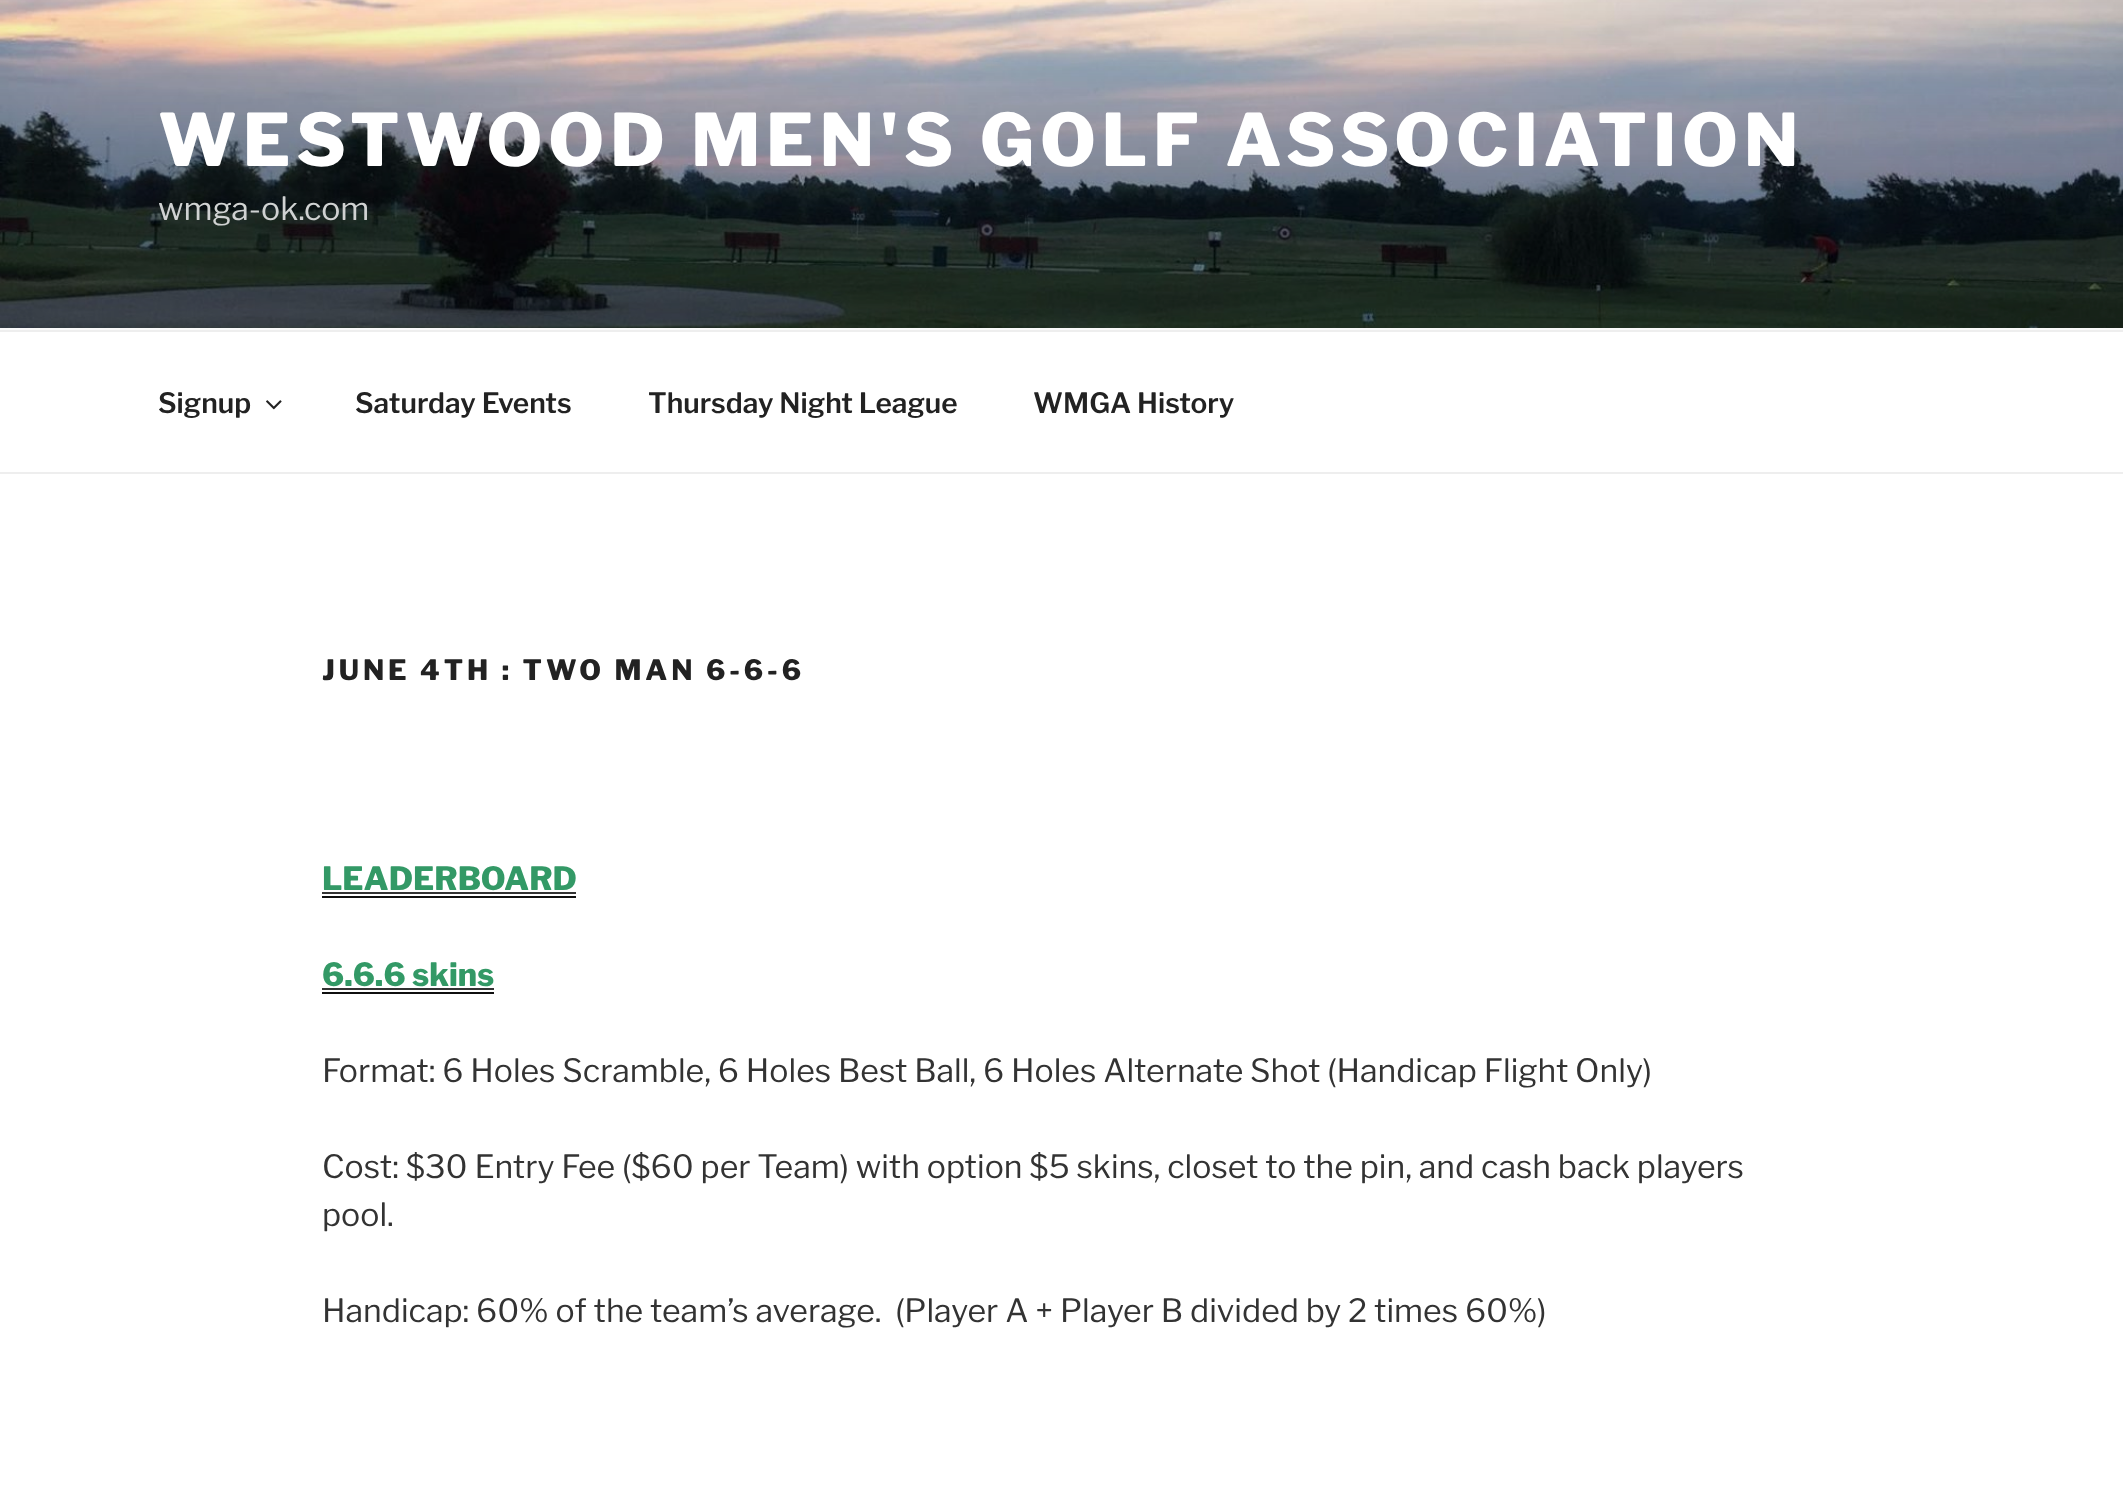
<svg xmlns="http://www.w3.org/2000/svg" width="2123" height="1486">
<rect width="100%" height="100%" fill="#fff"/>
<rect y="328" width="2123" height="2" fill="#fafafa"/>
<image x="0" y="0" width="2123" height="328" href="media/1.png"/>
<text x="158" y="166" style="font-family:Libre Franklin;font-size:72px;font-weight:800;letter-spacing:5.75px;fill:#fff">WESTWOOD MEN'S GOLF ASSOCIATION</text>
<text x="158" y="220" style="font-family:Libre Franklin;font-size:32px;fill:#d0d2d2">wmga-ok.com</text>
<rect y="330" width="2123" height="2" fill="#eee"/>
<rect y="472" width="2123" height="2" fill="#eee"/>
<text x="158" y="413" style="font-family:Libre Franklin;font-size:28px;font-weight:600;fill:#222">Signup</text>
<image x="266" y="400" width="16" height="10" href="media/2.png"/>
<text x="355" y="413" style="font-family:Libre Franklin;font-size:28px;font-weight:600;fill:#222">Saturday Events</text>
<text x="648" y="413" style="font-family:Libre Franklin;font-size:28px;font-weight:600;fill:#222">Thursday Night League</text>
<text x="1033" y="413" style="font-family:Libre Franklin;font-size:28px;font-weight:600;fill:#222">WMGA History</text>
<text x="322" y="680" style="font-family:Libre Franklin;font-size:28px;font-weight:800;letter-spacing:3.9px;fill:#222">JUNE 4TH : TWO MAN 6-6-6</text>
<text x="322" y="890" style="font-family:Libre Franklin;font-size:32px;font-weight:800;fill:#396">LEADERBOARD</text>
<rect x="322" y="896" width="254" height="2" fill="#0f0f0f"/>
<rect x="322" y="892" width="254" height="2" fill="#333"/>
<text x="322" y="986" style="font-family:Libre Franklin;font-size:32px;font-weight:800;fill:#396">6.6.6 skins</text>
<rect x="322" y="992" width="172" height="2" fill="#0f0f0f"/>
<rect x="322" y="988" width="172" height="2" fill="#333"/>
<text x="322" y="1082" style="font-family:Libre Franklin;font-size:32px;fill:#333">Format: 6 Holes Scramble, 6 Holes Best Ball, 6 Holes Alternate Shot (Handicap Flight Only)</text>
<text x="322" y="1178" style="font-family:Libre Franklin;font-size:32px;fill:#333">Cost: $30 Entry Fee ($60 per Team) with option $5 skins, closet to the pin, and cash back players</text>
<text x="322" y="1226" style="font-family:Libre Franklin;font-size:32px;fill:#333">pool.</text>
<text x="322" y="1322" style="font-family:Libre Franklin;font-size:32px;fill:#333" xml:space="preserve">Handicap: 60% of the team’s average.  (Player A + Player B divided by 2 times 60%)</text>
</svg>
